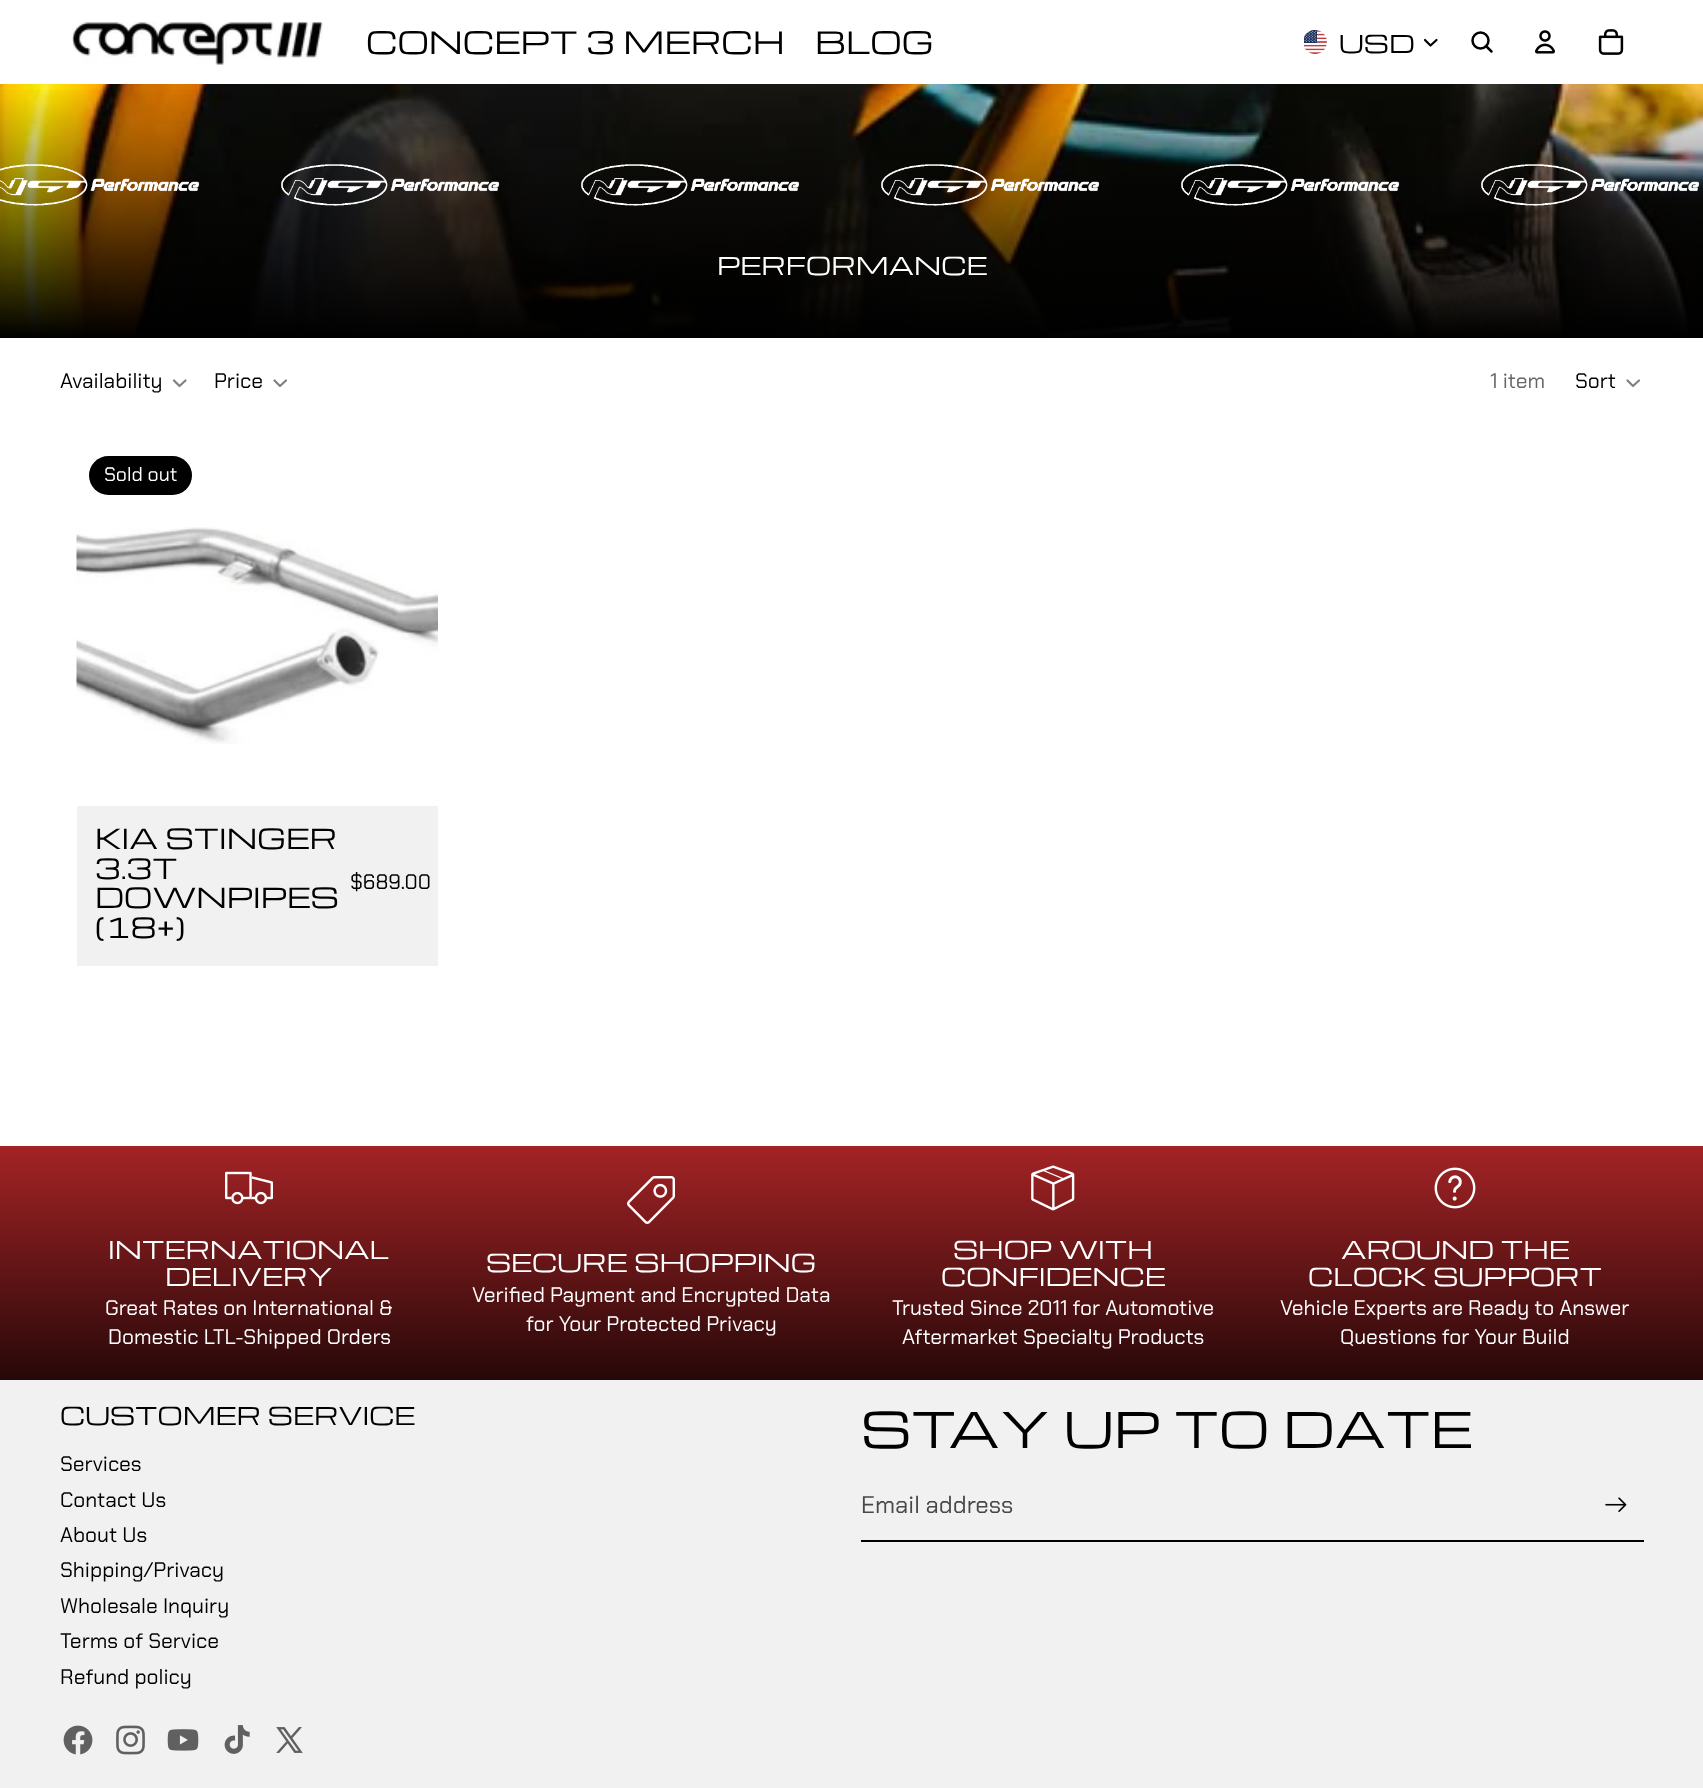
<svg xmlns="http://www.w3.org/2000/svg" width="1703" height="1788">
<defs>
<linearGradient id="g1" gradientUnits="userSpaceOnUse" x1="852" y1="338" x2="852" y2="84"><stop offset="0" stop-color="#000"/><stop offset="1" stop-color="#000" stop-opacity="0"/></linearGradient>
<linearGradient id="g2" gradientUnits="userSpaceOnUse" x1="852" y1="1380" x2="852" y2="1146"><stop offset="0" stop-color="#270809"/><stop offset="1" stop-color="#a42325"/></linearGradient>
</defs>
<rect width="100%" height="100%" fill="#fff"/>
<image x="71" y="21" width="252" height="46" href="media/1.png"/>
<text x="366" y="54" style="font-family:Michroma;font-size:30px;fill:#000">CONCEPT 3 MERCH</text>
<text x="815" y="54" style="font-family:Michroma;font-size:30px;fill:#000">BLOG</text>
<image x="1304" y="30" width="23" height="24" href="media/2.png"/>
<text x="1339" y="53" style="font-family:Michroma;font-size:24px;fill:#000">USD</text>
<path d="M1436.5 40l-6 5.5l-5.5-5.5" fill="none" stroke="#000" stroke-width="2.2" stroke-linecap="round" stroke-linejoin="round"/>
<circle cx="1480.5" cy="40.5" r="8" fill="none" stroke="#000" stroke-width="2.5"/>
<path d="M1486 46l5.5 5.5" fill="none" stroke="#000" stroke-width="2.5" stroke-linecap="round" stroke-linejoin="round"/>
<image x="1535" y="30" width="20" height="24" href="media/3.png"/>
<image x="1598" y="29" width="26" height="26" href="media/4.png"/>
<image x="0" y="84" width="1703" height="253" href="media/5.png"/>
<rect y="89" width="1703" height="249" fill="url(#g1)"/>
<image x="0" y="164" width="200" height="42" href="media/6.png"/>
<image x="281" y="164" width="219" height="42" href="media/7.png"/>
<image x="581" y="164" width="218" height="42" href="media/8.png"/>
<image x="881" y="164" width="219" height="42" href="media/9.png"/>
<image x="1181" y="164" width="219" height="42" href="media/10.png"/>
<image x="1481" y="164" width="219" height="42" href="media/11.png"/>
<text x="717" y="275" style="font-family:Michroma;font-size:24px;fill:#fff">PERFORMANCE</text>
<text x="60" y="388" style="font-family:Chakra Petch;font-size:21px;fill:#000">Availability</text>
<path d="M185.5 380.5l-6 5.5l-5.5-5.5" fill="none" stroke="#808080" stroke-width="2.2" stroke-linecap="round" stroke-linejoin="round"/>
<text x="214" y="388" style="font-family:Chakra Petch;font-size:21px;fill:#000">Price</text>
<path d="M286 380.5l-6 5.5l-5.5-5.5" fill="none" stroke="#808080" stroke-width="2.2" stroke-linecap="round" stroke-linejoin="round"/>
<text x="1490" y="388" style="font-family:Chakra Petch;font-size:21px;fill:#666">1 item</text>
<text x="1575" y="388" style="font-family:Chakra Petch;font-size:21px;fill:#000">Sort</text>
<path d="M1639 380.5l-6 5.5l-5.5-5.5" fill="none" stroke="#808080" stroke-width="2.2" stroke-linecap="round" stroke-linejoin="round"/>
<rect x="89" y="456" width="103" height="39" rx="19.5" fill="#000"/>
<text x="104" y="481" style="font-family:Chakra Petch;font-size:19.5px;fill:#fff">Sold out</text>
<image x="76" y="527" width="362" height="217" href="media/12.png"/>
<rect x="77" y="806" width="361" height="160" fill="#f1f1f1"/>
<text x="95" y="849" style="font-family:Michroma;font-size:27px;fill:#000">KIA STINGER</text>
<text x="95" y="879" style="font-family:Michroma;font-size:27px;fill:#000">3.3T</text>
<text x="95" y="908" style="font-family:Michroma;font-size:27px;fill:#000">DOWNPIPES</text>
<text x="95" y="938" style="font-family:Michroma;font-size:27px;fill:#000">(18+)</text>
<text x="350" y="889" style="font-family:Chakra Petch;font-size:21px;fill:#000">$689.00</text>
<rect y="1146" width="1703" height="234" fill="url(#g2)"/>
<image x="225" y="1171" width="48" height="34" href="media/13.png"/>
<text x="108" y="1259" style="font-family:Michroma;font-size:24px;fill:#fff">INTERNATIONAL</text>
<text x="165" y="1286" style="font-family:Michroma;font-size:24px;fill:#fff">DELIVERY</text>
<text x="105" y="1315" style="font-family:Chakra Petch;font-size:21px;fill:#fff">Great Rates on International &amp;</text>
<text x="108" y="1344" style="font-family:Chakra Petch;font-size:21px;fill:#fff">Domestic LTL-Shipped Orders</text>
<image x="627" y="1176" width="48" height="48" href="media/14.png"/>
<text x="486" y="1272" style="font-family:Michroma;font-size:24px;fill:#fff">SECURE SHOPPING</text>
<text x="472" y="1302" style="font-family:Chakra Petch;font-size:21px;fill:#fff">Verified Payment and Encrypted Data</text>
<text x="526" y="1331" style="font-family:Chakra Petch;font-size:21px;fill:#fff">for Your Protected Privacy</text>
<image x="1031" y="1165" width="44" height="46" href="media/15.png"/>
<text x="953" y="1259" style="font-family:Michroma;font-size:24px;fill:#fff">SHOP WITH</text>
<text x="941" y="1286" style="font-family:Michroma;font-size:24px;fill:#fff">CONFIDENCE</text>
<text x="892" y="1315" style="font-family:Chakra Petch;font-size:21px;fill:#fff">Trusted Since 2011 for Automotive</text>
<text x="902" y="1344" style="font-family:Chakra Petch;font-size:21px;fill:#fff">Aftermarket Specialty Products</text>
<image x="1434" y="1167" width="42" height="42" href="media/16.png"/>
<text x="1341" y="1259" style="font-family:Michroma;font-size:24px;fill:#fff">AROUND THE</text>
<text x="1308" y="1286" style="font-family:Michroma;font-size:24px;fill:#fff">CLOCK SUPPORT</text>
<text x="1280" y="1315" style="font-family:Chakra Petch;font-size:21px;fill:#fff">Vehicle Experts are Ready to Answer</text>
<text x="1340" y="1344" style="font-family:Chakra Petch;font-size:21px;fill:#fff">Questions for Your Build</text>
<rect y="1380" width="1703" height="408" fill="#f1f1f1"/>
<text x="60" y="1425" style="font-family:Michroma;font-size:24px;fill:#000">CUSTOMER SERVICE</text>
<text x="60" y="1471" style="font-family:Chakra Petch;font-size:21px;fill:#000">Services</text>
<text x="60" y="1507" style="font-family:Chakra Petch;font-size:21px;fill:#000">Contact Us</text>
<text x="60" y="1542" style="font-family:Chakra Petch;font-size:21px;fill:#000">About Us</text>
<text x="60" y="1577" style="font-family:Chakra Petch;font-size:21px;fill:#000">Shipping/Privacy</text>
<text x="60" y="1613" style="font-family:Chakra Petch;font-size:21px;fill:#000">Wholesale Inquiry</text>
<text x="60" y="1648" style="font-family:Chakra Petch;font-size:21px;fill:#000">Terms of Service</text>
<text x="60" y="1684" style="font-family:Chakra Petch;font-size:21px;fill:#000">Refund policy</text>
<text x="861" y="1448" style="font-family:Michroma;font-size:48px;fill:#000">STAY UP TO DATE</text>
<rect x="861" y="1540" width="783" height="2" fill="#000"/>
<text x="861" y="1513" style="font-family:Chakra Petch;font-size:24px;fill:#484848">Email address</text>
<image x="1605" y="1497" width="22" height="15" href="media/17.png"/>
<image x="63" y="1725" width="30" height="30" href="media/18.png"/>
<image x="116" y="1725" width="29" height="30" href="media/19.png"/>
<image x="167" y="1729" width="32" height="22" href="media/20.png"/>
<image x="224" y="1725" width="26" height="29" href="media/21.png"/>
<image x="276" y="1727" width="27" height="26" href="media/22.png"/>
</svg>
